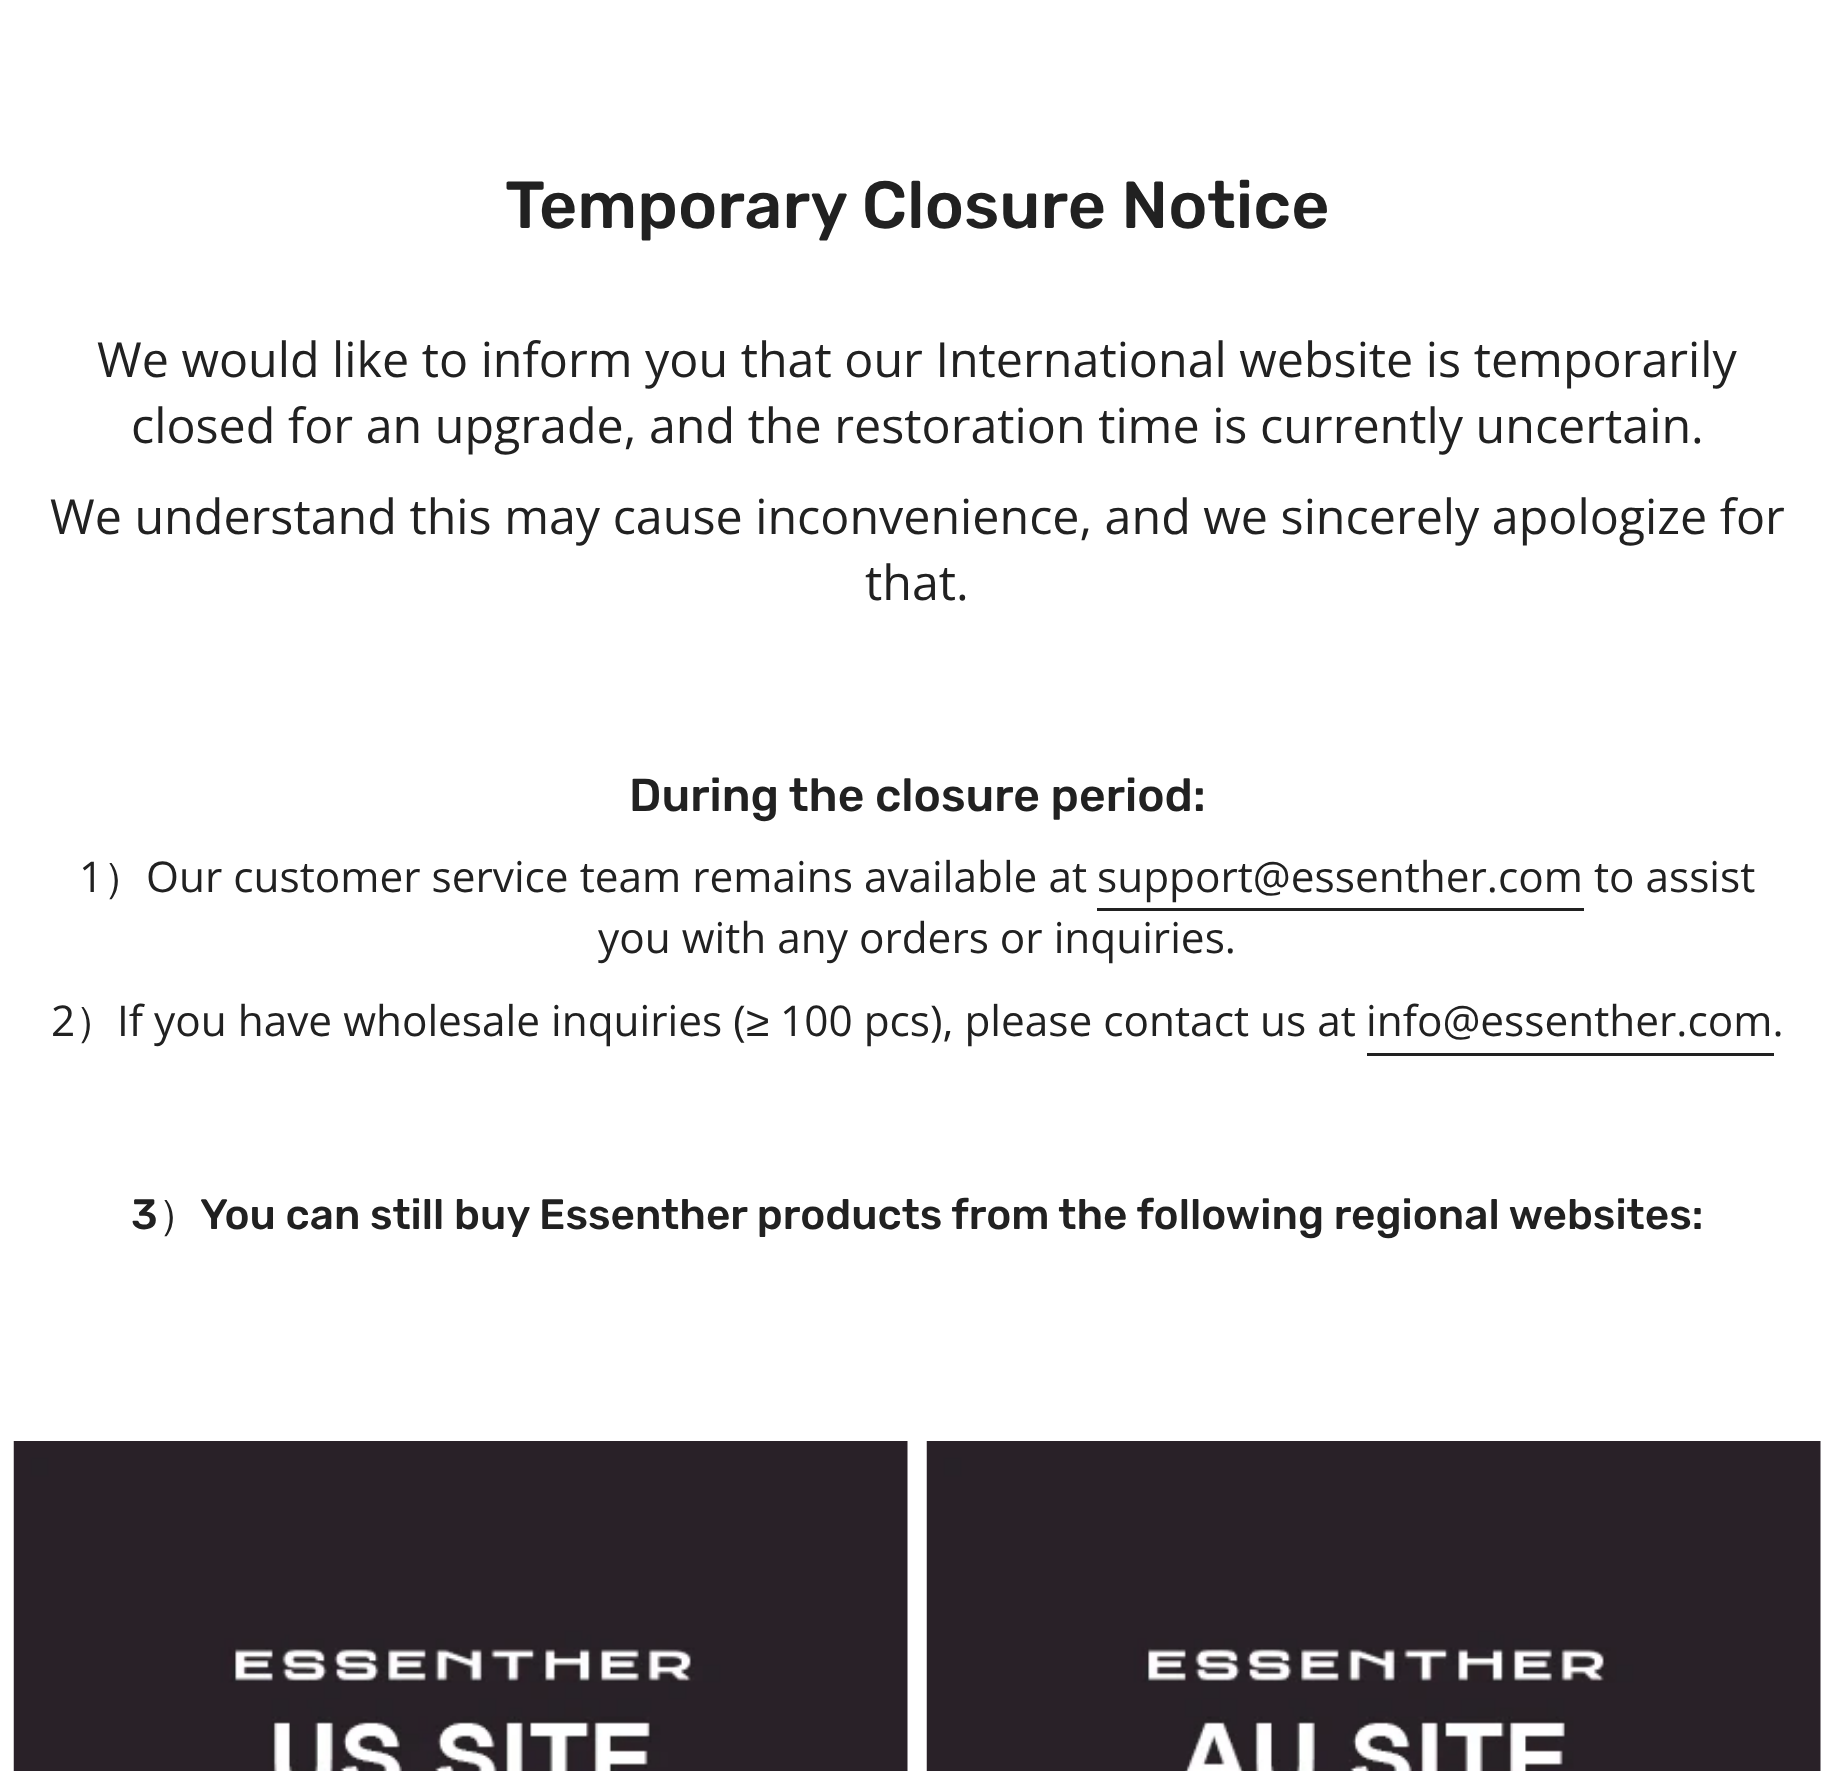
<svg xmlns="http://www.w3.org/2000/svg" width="1832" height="1771">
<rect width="100%" height="100%" fill="#fff"/>
<text x="505" y="228" style="font-family:Rubik;font-size:66.4px;font-weight:500;fill:#212121">Temporary Closure Notice</text>
<text x="97" y="377" style="font-family:Open Sans;font-size:48.4px;fill:#212121">We would like to inform you that our International website is temporarily</text>
<text x="131" y="443" style="font-family:Open Sans;font-size:48.4px;fill:#212121">closed for an upgrade, and the restoration time is currently uncertain.</text>
<text x="50" y="534" style="font-family:Open Sans;font-size:48.4px;fill:#212121">We understand this may cause inconvenience, and we sincerely apologize for</text>
<text x="865" y="600" style="font-family:Open Sans;font-size:48.4px;fill:#212121">that.</text>
<text x="629" y="811" style="font-family:Rubik;font-size:46.25px;font-weight:500;fill:#212121">During the closure period:</text>
<text x="79" y="892" style="font-family:Open Sans;font-size:42.35px;fill:#212121">1</text>
<text x="103" y="892" style="font-family:WenQuanYi Zen Hei;font-size:42.35px;font-weight:500;fill:#212121">）</text>
<text x="146" y="892" style="font-family:Open Sans;font-size:42.35px;fill:#212121">Our customer service team remains available at</text>
<text x="1097" y="892" style="font-family:Open Sans;font-size:42.35px;fill:#212121">support@essenther.com to assist</text>
<rect x="1097" y="908" width="487" height="3" fill="#212121"/>
<text x="598" y="953" style="font-family:Open Sans;font-size:42.35px;fill:#212121">you with any orders or inquiries.</text>
<text x="51" y="1036" style="font-family:Open Sans;font-size:42.35px;fill:#212121">2</text>
<text x="75" y="1036" style="font-family:WenQuanYi Zen Hei;font-size:42.35px;font-weight:500;fill:#212121">）</text>
<text x="117" y="1036" style="font-family:Open Sans;font-size:42.35px;fill:#212121">If you have wholesale inquiries (</text>
<text x="746" y="1036" style="font-family:Liberation Sans;font-size:42.35px;fill:#212121">≥</text>
<text x="780" y="1036" style="font-family:Open Sans;font-size:42.35px;fill:#212121">100 pcs), please contact us at</text>
<text x="1366" y="1036" style="font-family:Open Sans;font-size:42.35px;fill:#212121">info@essenther.com.</text>
<rect x="1367" y="1053" width="407" height="3" fill="#212121"/>
<text x="131" y="1229" style="font-family:Rubik;font-size:42.35px;font-weight:500;fill:#212121">3</text>
<text x="158" y="1229" style="font-family:WenQuanYi Zen Hei;font-size:42.35px;font-weight:500;fill:#212121">）</text>
<text x="200" y="1229" style="font-family:Rubik;font-size:42.35px;font-weight:500;fill:#212121">You can still buy Essenther products from the following regional websites:</text>
<image x="13" y="1441" width="895" height="330" href="media/1.png"/>
<image x="926" y="1441" width="895" height="330" href="media/2.png"/>
</svg>
